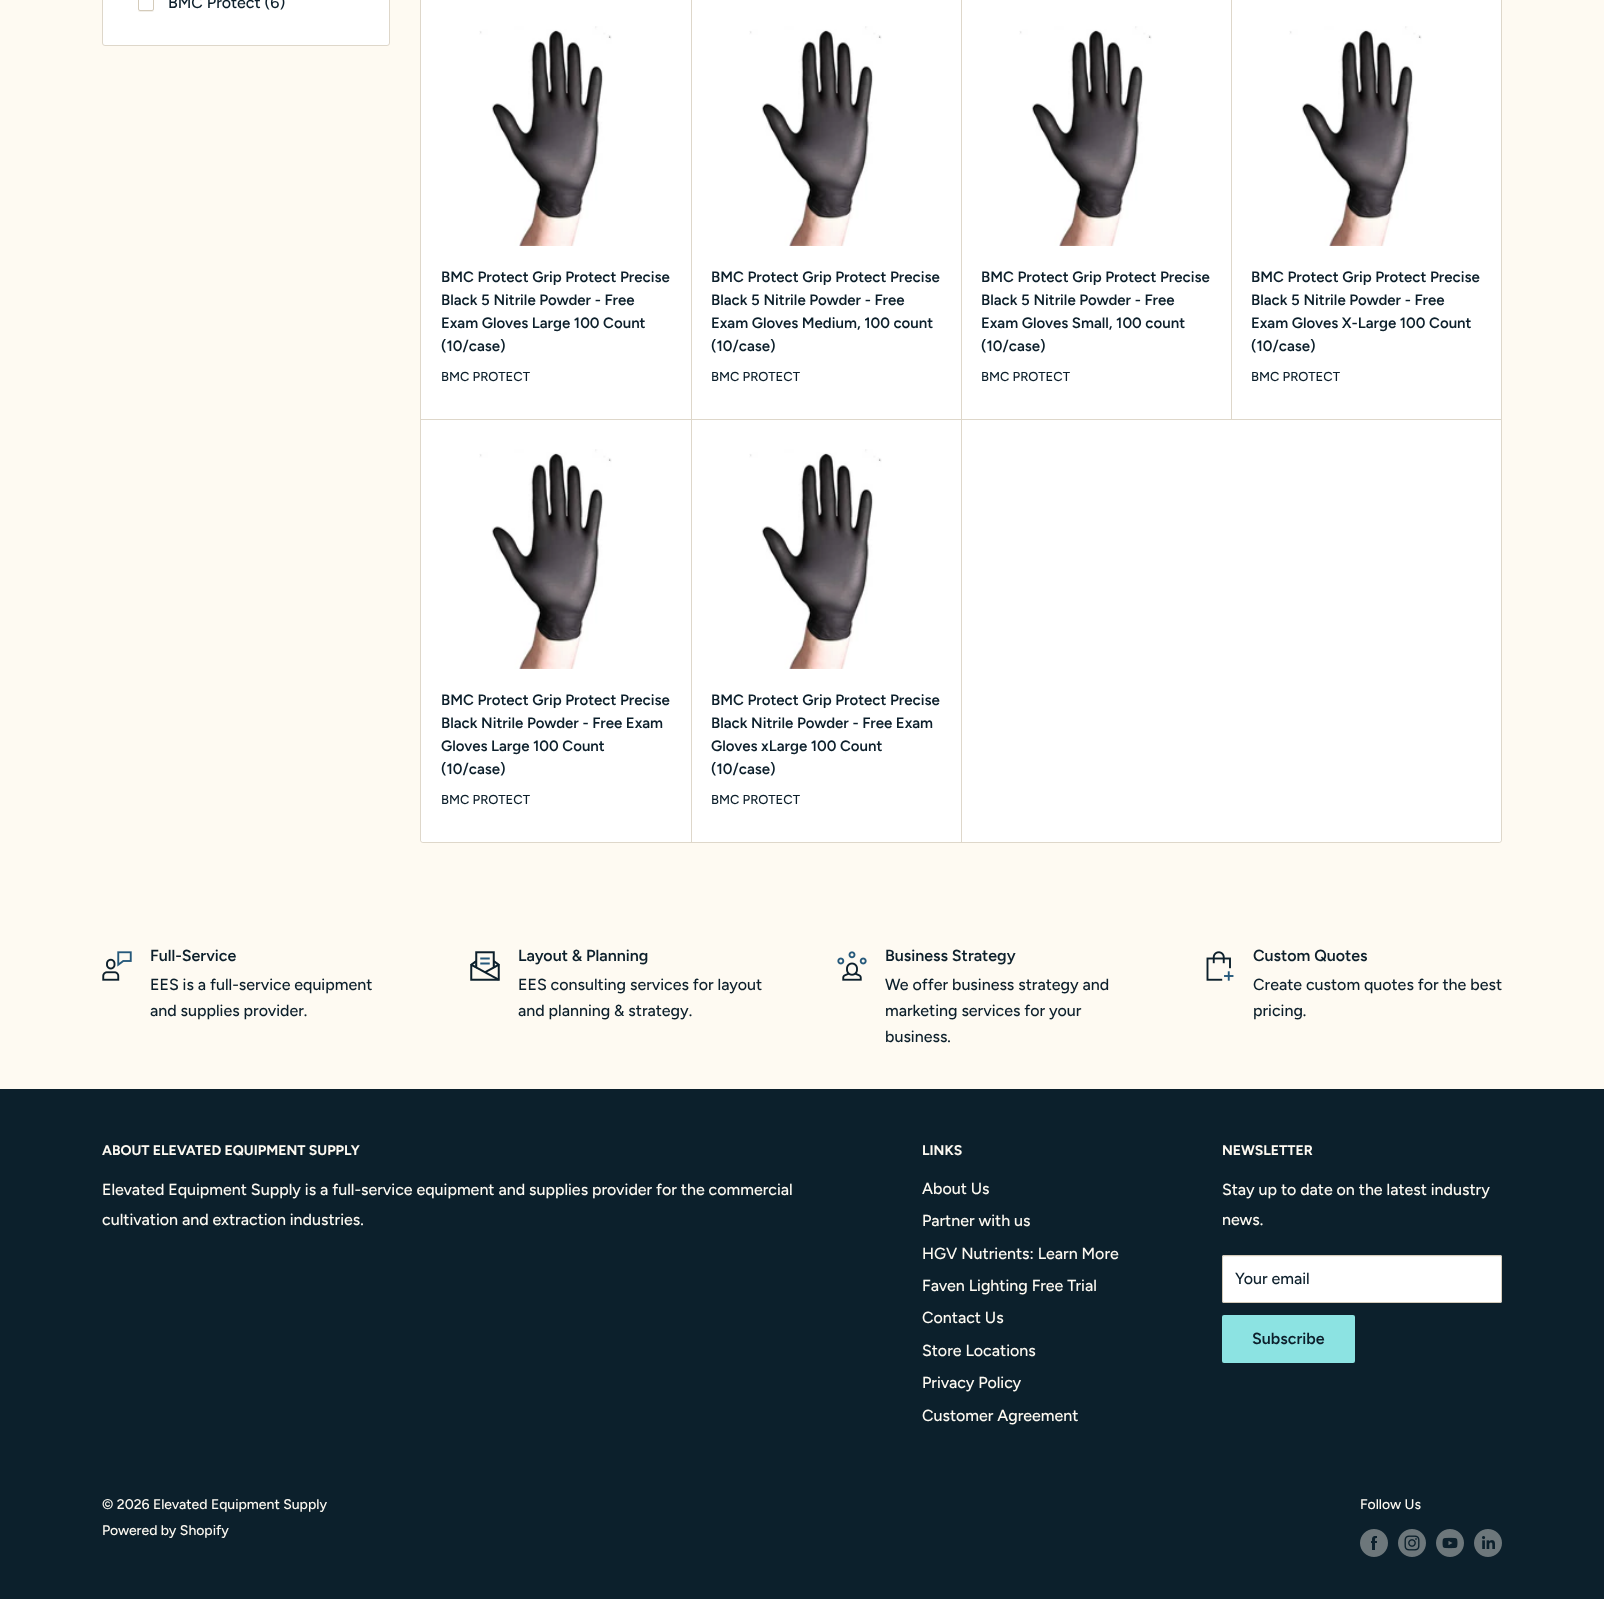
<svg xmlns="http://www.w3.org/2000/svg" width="1604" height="1599">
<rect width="100%" height="100%" fill="#fefaf2"/>
<rect x="102.5" y="-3.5" width="287" height="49" rx="2.5" fill="#fff" stroke="#ded7ca"/>
<path d="M138 9c0 3 1 3 4 3h8c3 0 4 0 4-3c0 1-1 2-2 2h-12c-1 0-2-1-2-2z" fill="#f2efea"/>
<rect x="138.5" y="-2.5" width="15" height="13" rx="1.5" fill="#fff" stroke="#d4cbba"/>
<text x="168" y="8" style="font-family:Figtree;font-size:16px;font-weight:500;fill:#0c1f2b">BMC Protect (6)</text>
<rect x="420.5" y="-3.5" width="1081" height="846" rx="2.5" fill="#fff" stroke="#ded7ca"/>
<rect x="421" y="-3" width="1080" height="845" rx="3" fill="#fff"/>
<rect x="421" y="419" width="1080" height="1" fill="#ded7ca"/>
<rect x="691" width="1" height="842" fill="#ded7ca"/>
<image x="479" y="26" width="133" height="220" href="media/1.png"/>
<text x="441" y="282" style="font-family:Figtree;font-size:15px;font-weight:600;fill:#0c1f2b">BMC Protect Grip Protect Precise</text>
<text x="441" y="305" style="font-family:Figtree;font-size:15px;font-weight:600;fill:#0c1f2b">Black 5 Nitrile Powder - Free</text>
<text x="441" y="328" style="font-family:Figtree;font-size:15px;font-weight:600;fill:#0c1f2b">Exam Gloves Large 100 Count</text>
<text x="441" y="351" style="font-family:Figtree;font-size:15px;font-weight:600;fill:#0c1f2b">(10/case)</text>
<text x="441" y="381" style="font-family:Figtree;font-size:13px;font-weight:500;fill:#0c1f2b">BMC PROTECT</text>
<image x="749" y="26" width="133" height="220" href="media/1.png"/>
<rect x="961" width="1" height="842" fill="#ded7ca"/>
<text x="711" y="282" style="font-family:Figtree;font-size:15px;font-weight:600;fill:#0c1f2b">BMC Protect Grip Protect Precise</text>
<text x="711" y="305" style="font-family:Figtree;font-size:15px;font-weight:600;fill:#0c1f2b">Black 5 Nitrile Powder - Free</text>
<text x="711" y="328" style="font-family:Figtree;font-size:15px;font-weight:600;fill:#0c1f2b">Exam Gloves Medium, 100 count</text>
<text x="711" y="351" style="font-family:Figtree;font-size:15px;font-weight:600;fill:#0c1f2b">(10/case)</text>
<text x="711" y="381" style="font-family:Figtree;font-size:13px;font-weight:500;fill:#0c1f2b">BMC PROTECT</text>
<image x="1019" y="26" width="133" height="220" href="media/1.png"/>
<rect x="1231" width="1" height="419" fill="#ded7ca"/>
<text x="981" y="282" style="font-family:Figtree;font-size:15px;font-weight:600;fill:#0c1f2b">BMC Protect Grip Protect Precise</text>
<text x="981" y="305" style="font-family:Figtree;font-size:15px;font-weight:600;fill:#0c1f2b">Black 5 Nitrile Powder - Free</text>
<text x="981" y="328" style="font-family:Figtree;font-size:15px;font-weight:600;fill:#0c1f2b">Exam Gloves Small, 100 count</text>
<text x="981" y="351" style="font-family:Figtree;font-size:15px;font-weight:600;fill:#0c1f2b">(10/case)</text>
<text x="981" y="381" style="font-family:Figtree;font-size:13px;font-weight:500;fill:#0c1f2b">BMC PROTECT</text>
<image x="1289" y="26" width="133" height="220" href="media/1.png"/>
<text x="1251" y="282" style="font-family:Figtree;font-size:15px;font-weight:600;fill:#0c1f2b">BMC Protect Grip Protect Precise</text>
<text x="1251" y="305" style="font-family:Figtree;font-size:15px;font-weight:600;fill:#0c1f2b">Black 5 Nitrile Powder - Free</text>
<text x="1251" y="328" style="font-family:Figtree;font-size:15px;font-weight:600;fill:#0c1f2b">Exam Gloves X-Large 100 Count</text>
<text x="1251" y="351" style="font-family:Figtree;font-size:15px;font-weight:600;fill:#0c1f2b">(10/case)</text>
<text x="1251" y="381" style="font-family:Figtree;font-size:13px;font-weight:500;fill:#0c1f2b">BMC PROTECT</text>
<image x="479" y="449" width="133" height="220" href="media/1.png"/>
<text x="441" y="705" style="font-family:Figtree;font-size:15px;font-weight:600;fill:#0c1f2b">BMC Protect Grip Protect Precise</text>
<text x="441" y="728" style="font-family:Figtree;font-size:15px;font-weight:600;fill:#0c1f2b">Black Nitrile Powder - Free Exam</text>
<text x="441" y="751" style="font-family:Figtree;font-size:15px;font-weight:600;fill:#0c1f2b">Gloves Large 100 Count</text>
<text x="441" y="774" style="font-family:Figtree;font-size:15px;font-weight:600;fill:#0c1f2b">(10/case)</text>
<text x="441" y="804" style="font-family:Figtree;font-size:13px;font-weight:500;fill:#0c1f2b">BMC PROTECT</text>
<image x="749" y="449" width="133" height="220" href="media/1.png"/>
<text x="711" y="705" style="font-family:Figtree;font-size:15px;font-weight:600;fill:#0c1f2b">BMC Protect Grip Protect Precise</text>
<text x="711" y="728" style="font-family:Figtree;font-size:15px;font-weight:600;fill:#0c1f2b">Black Nitrile Powder - Free Exam</text>
<text x="711" y="751" style="font-family:Figtree;font-size:15px;font-weight:600;fill:#0c1f2b">Gloves xLarge 100 Count</text>
<text x="711" y="774" style="font-family:Figtree;font-size:15px;font-weight:600;fill:#0c1f2b">(10/case)</text>
<text x="711" y="804" style="font-family:Figtree;font-size:13px;font-weight:500;fill:#0c1f2b">BMC PROTECT</text>
<image x="102" y="951" width="30" height="30" href="media/2.png"/>
<text x="150" y="961" style="font-family:Figtree;font-size:16px;font-weight:600;fill:#0c1f2b">Full-Service</text>
<text x="150" y="990" style="font-family:Figtree;font-size:16px;font-weight:500;fill:#0c1f2b">EES is a full-service equipment</text>
<text x="150" y="1016" style="font-family:Figtree;font-size:16px;font-weight:500;fill:#0c1f2b">and supplies provider.</text>
<image x="470" y="951" width="30" height="30" href="media/3.png"/>
<text x="518" y="961" style="font-family:Figtree;font-size:16px;font-weight:600;fill:#0c1f2b">Layout &amp; Planning</text>
<text x="518" y="990" style="font-family:Figtree;font-size:16px;font-weight:500;fill:#0c1f2b">EES consulting services for layout</text>
<text x="518" y="1016" style="font-family:Figtree;font-size:16px;font-weight:500;fill:#0c1f2b">and planning &amp; strategy.</text>
<image x="837" y="951" width="30" height="30" href="media/4.png"/>
<text x="885" y="961" style="font-family:Figtree;font-size:16px;font-weight:600;fill:#0c1f2b">Business Strategy</text>
<text x="885" y="990" style="font-family:Figtree;font-size:16px;font-weight:500;fill:#0c1f2b">We offer business strategy and</text>
<text x="885" y="1016" style="font-family:Figtree;font-size:16px;font-weight:500;fill:#0c1f2b">marketing services for your</text>
<text x="885" y="1042" style="font-family:Figtree;font-size:16px;font-weight:500;fill:#0c1f2b">business.</text>
<image x="1206" y="951" width="28" height="30" href="media/5.png"/>
<text x="1253" y="961" style="font-family:Figtree;font-size:16px;font-weight:600;fill:#0c1f2b">Custom Quotes</text>
<text x="1253" y="990" style="font-family:Figtree;font-size:16px;font-weight:500;fill:#0c1f2b">Create custom quotes for the best</text>
<text x="1253" y="1016" style="font-family:Figtree;font-size:16px;font-weight:500;fill:#0c1f2b">pricing.</text>
<rect y="1089" width="1604" height="510" fill="#0c202c"/>
<text x="102" y="1155" style="font-family:Figtree;font-size:14px;font-weight:bold;fill:#fefaf2">ABOUT ELEVATED EQUIPMENT SUPPLY</text>
<text x="102" y="1195" style="font-family:Figtree;font-size:16px;font-weight:500;fill:#fefaf2">Elevated Equipment Supply is a full-service equipment and supplies provider for the commercial</text>
<text x="102" y="1225" style="font-family:Figtree;font-size:16px;font-weight:500;fill:#fefaf2">cultivation and extraction industries.</text>
<text x="922" y="1155" style="font-family:Figtree;font-size:14px;font-weight:bold;fill:#fefaf2">LINKS</text>
<text x="922" y="1194" style="font-family:Figtree;font-size:16px;font-weight:500;fill:#fefaf2">About Us</text>
<text x="922" y="1226" style="font-family:Figtree;font-size:16px;font-weight:500;fill:#fefaf2">Partner with us</text>
<text x="922" y="1259" style="font-family:Figtree;font-size:16px;font-weight:500;fill:#fefaf2">HGV Nutrients: Learn More</text>
<text x="922" y="1291" style="font-family:Figtree;font-size:16px;font-weight:500;fill:#fefaf2">Faven Lighting Free Trial</text>
<text x="922" y="1323" style="font-family:Figtree;font-size:16px;font-weight:500;fill:#fefaf2">Contact Us</text>
<text x="922" y="1356" style="font-family:Figtree;font-size:16px;font-weight:500;fill:#fefaf2">Store Locations</text>
<text x="922" y="1388" style="font-family:Figtree;font-size:16px;font-weight:500;fill:#fefaf2">Privacy Policy</text>
<text x="922" y="1421" style="font-family:Figtree;font-size:16px;font-weight:500;fill:#fefaf2">Customer Agreement</text>
<text x="1222" y="1155" style="font-family:Figtree;font-size:14px;font-weight:bold;fill:#fefaf2">NEWSLETTER</text>
<text x="1222" y="1195" style="font-family:Figtree;font-size:16px;font-weight:500;fill:#fefaf2">Stay up to date on the latest industry</text>
<text x="1222" y="1225" style="font-family:Figtree;font-size:16px;font-weight:500;fill:#fefaf2">news.</text>
<rect x="1222" y="1255" width="280" height="48" rx="2" fill="#fff"/>
<path d="M1224 1257h276c1 0 1 0 1 1c0-1 0-2-1-2h-276h-1v2c0-1 0-1 1-1z" fill="#f7f5f2"/>
<rect x="1222.5" y="1255.5" width="279" height="47" rx="1.5" fill="none" stroke="#d4cbba"/>
<text x="1235" y="1284" style="font-family:Figtree;font-size:16px;font-weight:500;fill:#0c1f2b">Your email</text>
<rect x="1222" y="1315" width="133" height="48" rx="2" fill="#8ce3e2"/>
<text x="1252" y="1344" style="font-family:Figtree;font-size:16px;font-weight:600;fill:#0c1f2b">Subscribe</text>
<text x="102" y="1509" style="font-family:Figtree;font-size:14px;font-weight:500;fill:#fefaf2">© 2026 Elevated Equipment Supply</text>
<text x="102" y="1535" style="font-family:Figtree;font-size:14px;font-weight:500;fill:#fefaf2">Powered by Shopify</text>
<text x="1360" y="1509" style="font-family:Figtree;font-size:14px;font-weight:500;fill:#fefaf2">Follow Us</text>
<image x="1360" y="1529" width="28" height="28" href="media/6.png"/>
<image x="1398" y="1529" width="28" height="28" href="media/7.png"/>
<image x="1436" y="1529" width="28" height="28" href="media/8.png"/>
<image x="1474" y="1529" width="28" height="28" href="media/9.png"/>
</svg>
